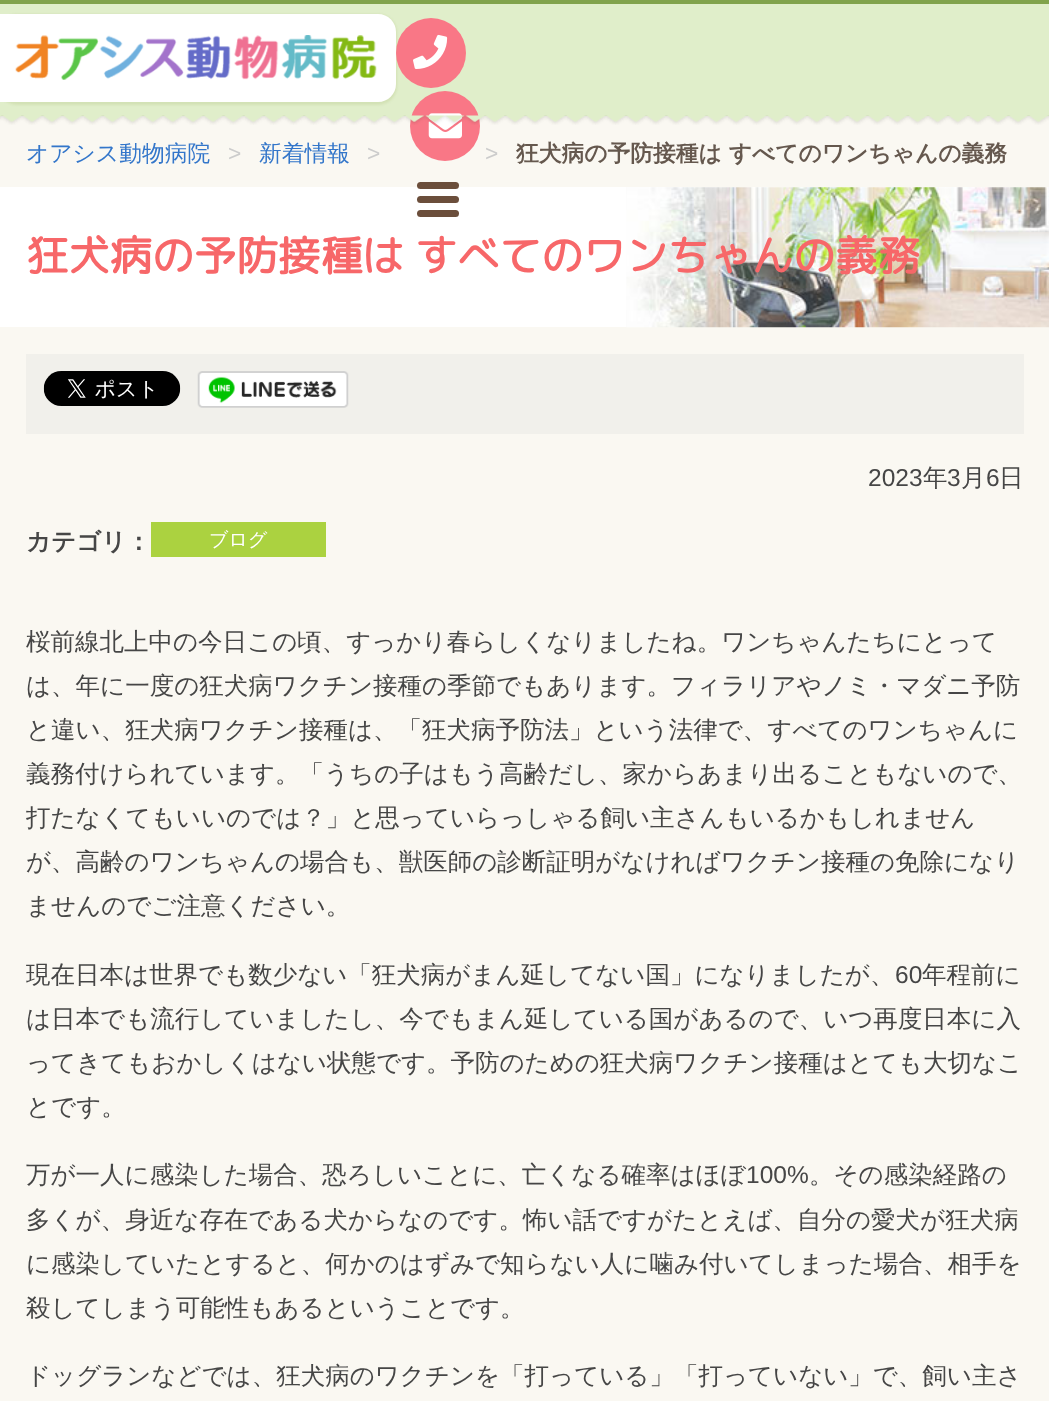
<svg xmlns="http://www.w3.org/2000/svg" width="1049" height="1401">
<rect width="100%" height="100%" fill="#faf8f2"/>
<rect y="4" width="1049" height="112" fill="#e0eeca"/>
<rect width="1049" height="4" fill="#81a34c"/>
<rect x="-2" y="14" width="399" height="91" rx="19" fill="#b5c6894d" filter="blur(1px)"/>
<path d="M0 14h378c10 0 18 8 18 18v52c0 10-8 18-18 18h-378z" fill="#fff"/>
<image x="15" y="35" width="362" height="45" href="media/1.png"/>
<circle cx="431" cy="53" r="35" fill="#f97786"/>
<image x="413" y="34" width="35" height="35" href="media/2.png"/>
<circle cx="445" cy="126" r="35" fill="#f97786"/>
<image x="428" y="113" width="34" height="26" href="media/3.png"/>
<rect y="187" width="1049" height="140" fill="#fff"/>
<rect x="417" y="182" width="42" height="7" rx="3.5" fill="#6b4e3b"/>
<rect x="417" y="196" width="42" height="7" rx="3.5" fill="#6b4e3b"/>
<rect x="417" y="210" width="42" height="7" rx="3.5" fill="#6b4e3b"/>
<image x="0" y="115" width="1049" height="10" href="media/4.png"/>
<text x="26" y="161" style="font-family:WenQuanYi Zen Hei;font-size:22.75px;font-weight:500;fill:#3376ca">オアシス動物病院</text>
<text x="228" y="161" style="font-family:Liberation Sans;font-size:22.75px;fill:#ccc">&gt;</text>
<text x="259" y="161" style="font-family:WenQuanYi Zen Hei;font-size:22.75px;font-weight:500;fill:#3376ca">新着情報</text>
<text x="367" y="161" style="font-family:Liberation Sans;font-size:22.75px;fill:#ccc">&gt;</text>
<text x="485" y="161" style="font-family:Liberation Sans;font-size:22.75px;fill:#ccc">&gt;</text>
<text x="516" y="161" style="font-family:WenQuanYi Zen Hei;font-size:22.75px;font-weight:bold;fill:#65584e">狂犬病の予防接種は すべてのワンちゃんの義務</text>
<image x="626" y="187" width="423" height="141" href="media/5.png"/>
<text x="26" y="271" style="font-family:'Rounded Mplus 1c';font-size:42px;font-weight:bold;fill:#f76769">狂犬病の予防接種は すべてのワンちゃんの義務</text>
<rect x="26" y="354" width="998" height="80" fill="#f1f0eb"/>
<image x="43" y="371" width="138" height="35" href="media/6.png"/>
<image x="197" y="371" width="152" height="37" href="media/7.png"/>
<text x="868" y="486" style="font-family:Liberation Sans;font-size:24.5px;fill:#464646">2023</text>
<text x="923" y="486" style="font-family:WenQuanYi Zen Hei;font-size:24.5px;font-weight:500;fill:#464646">年</text>
<text x="947" y="486" style="font-family:Liberation Sans;font-size:24.5px;fill:#464646">3</text>
<text x="961" y="486" style="font-family:WenQuanYi Zen Hei;font-size:24.5px;font-weight:500;fill:#464646">月</text>
<text x="986" y="486" style="font-family:Liberation Sans;font-size:24.5px;fill:#464646">6</text>
<text x="999" y="486" style="font-family:WenQuanYi Zen Hei;font-size:24.5px;font-weight:500;fill:#464646">日</text>
<text x="26" y="550" style="font-family:WenQuanYi Zen Hei;font-size:24.5px;font-weight:bold;fill:#464646">カテゴリ：</text>
<rect x="151" y="522" width="175" height="35" fill="#abd240"/>
<text x="209" y="546" style="font-family:WenQuanYi Zen Hei;font-size:19px;font-weight:500;fill:#fff">ブログ</text>
<text x="26" y="650" style="font-family:WenQuanYi Zen Hei;font-size:24.5px;font-weight:500;fill:#464646">桜前線北上中の今日この頃、すっかり春らしくなりましたね。ワンちゃんたちにとって</text>
<text x="26" y="694" style="font-family:WenQuanYi Zen Hei;font-size:24.5px;font-weight:500;fill:#464646">は、年に一度の狂犬病ワクチン接種の季節でもあります。フィラリアやノミ・マダニ予防</text>
<text x="26" y="738" style="font-family:WenQuanYi Zen Hei;font-size:24.5px;font-weight:500;fill:#464646">と違い、狂犬病ワクチン接種は、「狂犬病予防法」という法律で、すべてのワンちゃんに</text>
<text x="26" y="782" style="font-family:WenQuanYi Zen Hei;font-size:24.5px;font-weight:500;fill:#464646">義務付けられています。「うちの子はもう高齢だし、家からあまり出ることもないので、</text>
<text x="26" y="826" style="font-family:WenQuanYi Zen Hei;font-size:24.5px;font-weight:500;fill:#464646">打たなくてもいいのでは？」と思っていらっしゃる飼い主さんもいるかもしれません</text>
<text x="26" y="870" style="font-family:WenQuanYi Zen Hei;font-size:24.5px;font-weight:500;fill:#464646">が、高齢のワンちゃんの場合も、獣医師の診断証明がなければワクチン接種の免除になり</text>
<text x="26" y="914" style="font-family:WenQuanYi Zen Hei;font-size:24.5px;font-weight:500;fill:#464646">ませんのでご注意ください。</text>
<text x="26" y="983" style="font-family:WenQuanYi Zen Hei;font-size:24.5px;font-weight:500;fill:#464646">現在日本は世界でも数少ない「狂犬病がまん延してない国」になりましたが、</text>
<text x="895" y="983" style="font-family:Liberation Sans;font-size:24.5px;fill:#464646">60</text>
<text x="922" y="983" style="font-family:WenQuanYi Zen Hei;font-size:24.5px;font-weight:500;fill:#464646">年程前に</text>
<text x="26" y="1027" style="font-family:WenQuanYi Zen Hei;font-size:24.5px;font-weight:500;fill:#464646">は日本でも流行していましたし、今でもまん延している国があるので、いつ再度日本に入</text>
<text x="26" y="1071" style="font-family:WenQuanYi Zen Hei;font-size:24.5px;font-weight:500;fill:#464646">ってきてもおかしくはない状態です。予防のための狂犬病ワクチン接種はとても大切なこ</text>
<text x="26" y="1115" style="font-family:WenQuanYi Zen Hei;font-size:24.5px;font-weight:500;fill:#464646">とです。</text>
<text x="26" y="1183" style="font-family:WenQuanYi Zen Hei;font-size:24.5px;font-weight:500;fill:#464646">万が一人に感染した場合、恐ろしいことに、亡くなる確率はほぼ</text>
<text x="746" y="1183" style="font-family:Liberation Sans;font-size:24.5px;fill:#464646">100%</text>
<text x="809" y="1183" style="font-family:WenQuanYi Zen Hei;font-size:24.5px;font-weight:500;fill:#464646">。その感染経路の</text>
<text x="26" y="1228" style="font-family:WenQuanYi Zen Hei;font-size:24.5px;font-weight:500;fill:#464646">多くが、身近な存在である犬からなのです。怖い話ですがたとえば、自分の愛犬が狂犬病</text>
<text x="26" y="1272" style="font-family:WenQuanYi Zen Hei;font-size:24.5px;font-weight:500;fill:#464646">に感染していたとすると、何かのはずみで知らない人に噛み付いてしまった場合、相手を</text>
<text x="26" y="1316" style="font-family:WenQuanYi Zen Hei;font-size:24.5px;font-weight:500;fill:#464646">殺してしまう可能性もあるということです。</text>
<text x="26" y="1384" style="font-family:WenQuanYi Zen Hei;font-size:24.5px;font-weight:500;fill:#464646">ドッグランなどでは、狂犬病のワクチンを「打っている」「打っていない」で、飼い主さ</text>
</svg>
